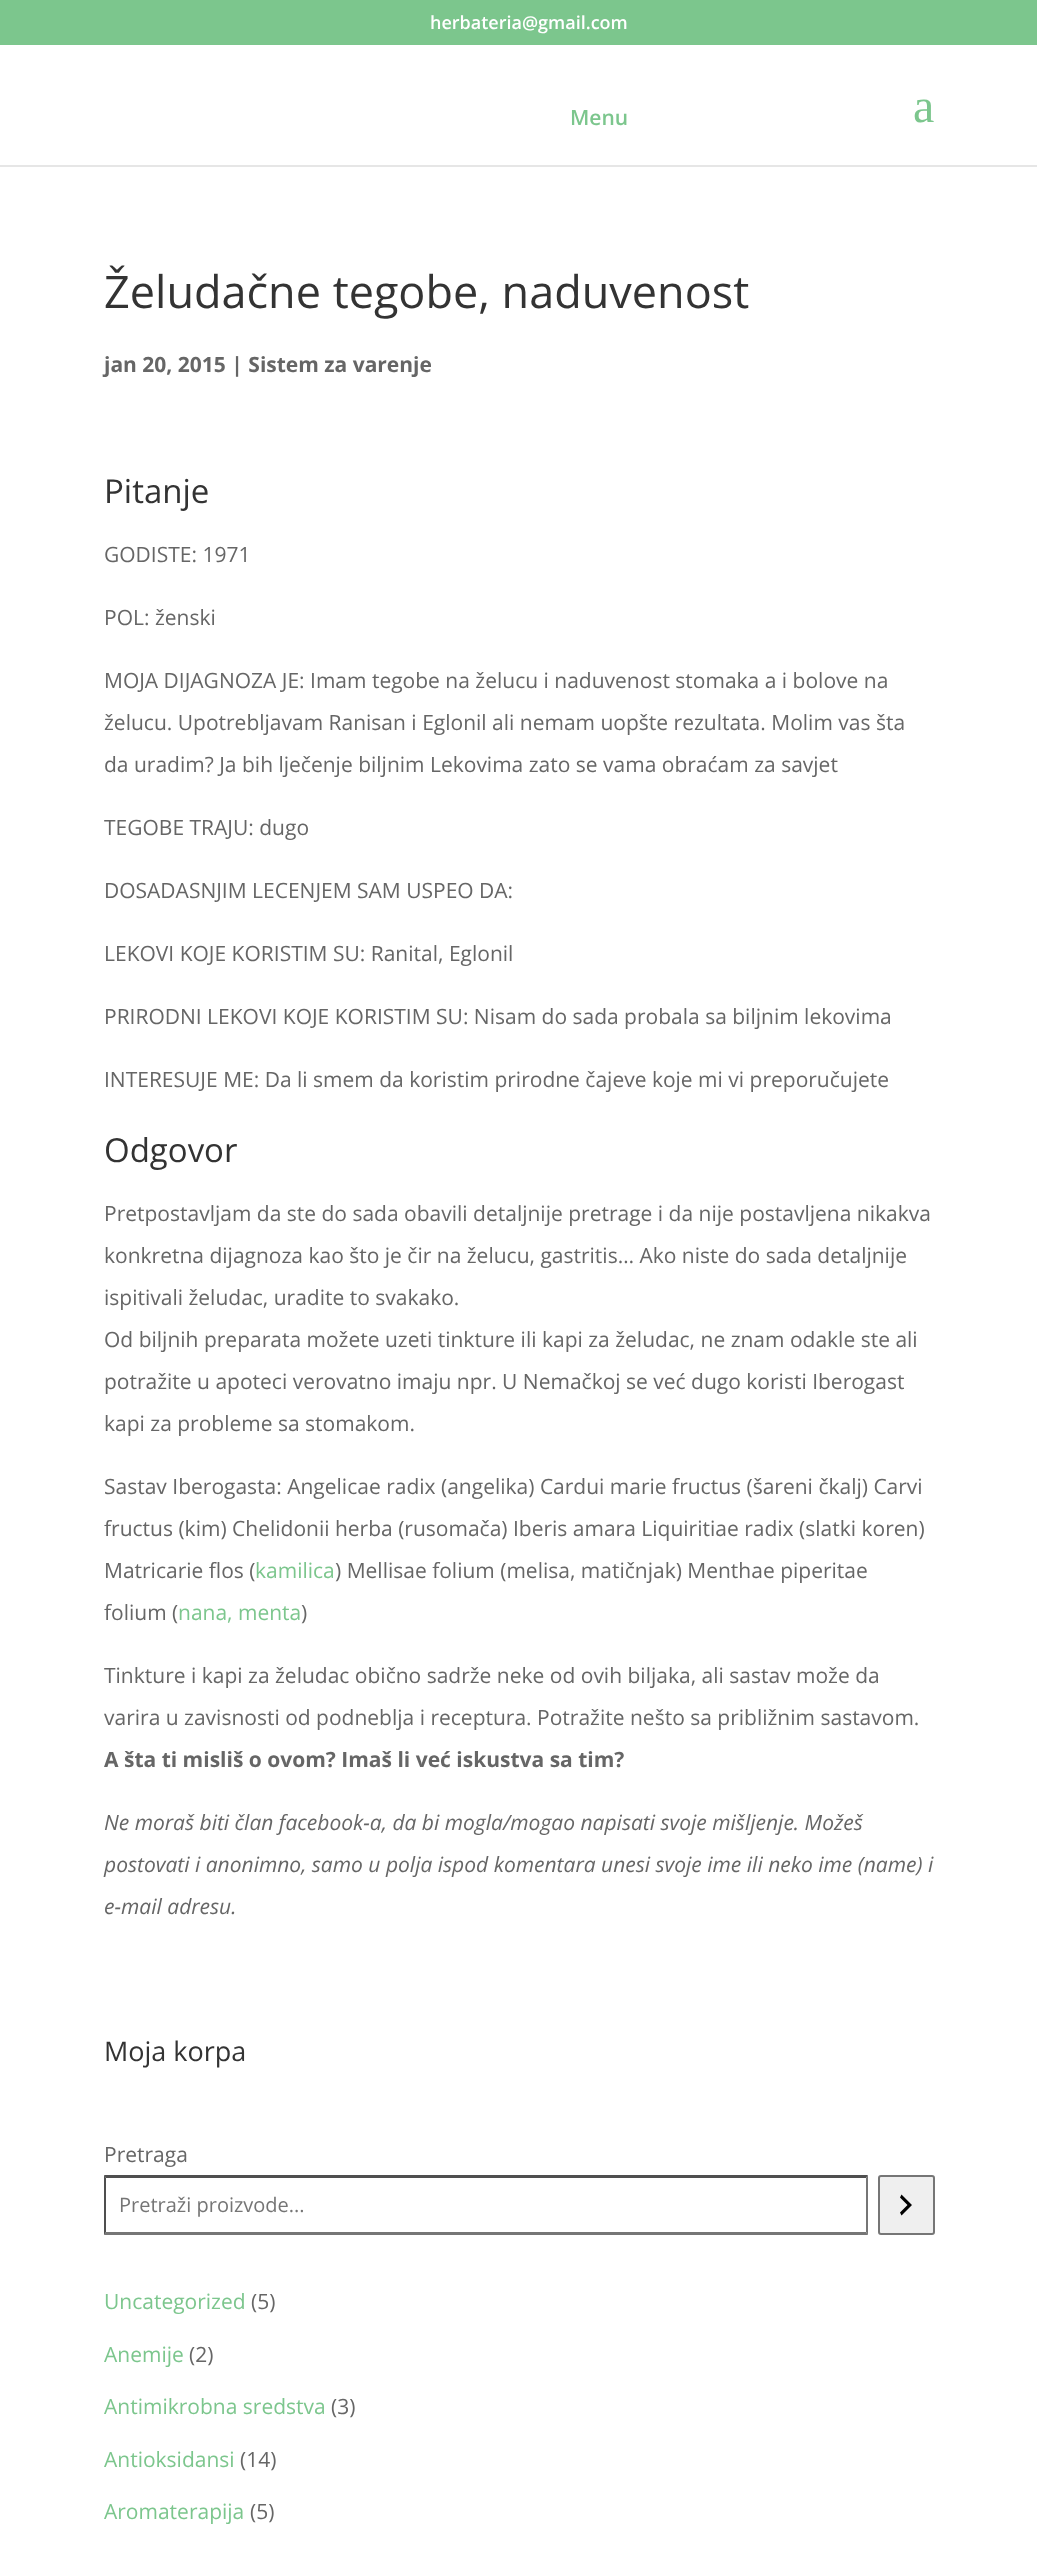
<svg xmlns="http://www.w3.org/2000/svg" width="1037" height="2549">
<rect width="100%" height="100%" fill="#fff"/>
<rect width="1037" height="45" fill="#7cc68d"/>
<text x="430" y="29" style="font-family:Open Sans;font-size:18px;font-weight:600;fill:#fff">herbateria@gmail.com</text>
<rect y="165" width="1037" height="2" fill="#e6e6e6"/>
<text x="570" y="125" style="font-family:Open Sans;font-size:21px;font-weight:600;fill:#7cc68d">Menu</text>
<text x="913" y="122" style="font-family:Liberation Serif;font-size:48px;fill:#7cc68d">a</text>
<text x="104" y="308" style="font-family:Open Sans;font-size:45px;fill:#333">Želudačne tegobe, naduvenost</text>
<text x="104" y="372" style="font-family:Open Sans;font-size:21px;font-weight:bold;fill:#666">jan 20, 2015 | Sistem za varenje</text>
<text x="104" y="503" style="font-family:Open Sans;font-size:33px;fill:#333">Pitanje</text>
<text x="104" y="562" style="font-family:Open Sans;font-size:21px;fill:#666">GODISTE: 1971</text>
<text x="104" y="625" style="font-family:Open Sans;font-size:21px;fill:#666">POL: ženski</text>
<text x="104" y="688" style="font-family:Open Sans;font-size:21px;fill:#666">MOJA DIJAGNOZA JE: Imam tegobe na želucu i naduvenost stomaka a i bolove na</text>
<text x="104" y="730" style="font-family:Open Sans;font-size:21px;fill:#666">želucu. Upotrebljavam Ranisan i Eglonil ali nemam uopšte rezultata. Molim vas šta</text>
<text x="104" y="772" style="font-family:Open Sans;font-size:21px;fill:#666">da uradim? Ja bih lječenje biljnim Lekovima zato se vama obraćam za savjet</text>
<text x="104" y="835" style="font-family:Open Sans;font-size:21px;fill:#666">TEGOBE TRAJU: dugo</text>
<text x="104" y="898" style="font-family:Open Sans;font-size:21px;fill:#666">DOSADASNJIM LECENJEM SAM USPEO DA:</text>
<text x="104" y="961" style="font-family:Open Sans;font-size:21px;fill:#666">LEKOVI KOJE KORISTIM SU: Ranital, Eglonil</text>
<text x="104" y="1024" style="font-family:Open Sans;font-size:21px;fill:#666">PRIRODNI LEKOVI KOJE KORISTIM SU: Nisam do sada probala sa biljnim lekovima</text>
<text x="104" y="1087" style="font-family:Open Sans;font-size:21px;fill:#666">INTERESUJE ME: Da li smem da koristim prirodne čajeve koje mi vi preporučujete</text>
<text x="104" y="1162" style="font-family:Open Sans;font-size:33px;fill:#333">Odgovor</text>
<text x="104" y="1221" style="font-family:Open Sans;font-size:21px;fill:#666">Pretpostavljam da ste do sada obavili detaljnije pretrage i da nije postavljena nikakva</text>
<text x="104" y="1263" style="font-family:Open Sans;font-size:21px;fill:#666">konkretna dijagnoza kao što je čir na želucu, gastritis… Ako niste do sada detaljnije</text>
<text x="104" y="1305" style="font-family:Open Sans;font-size:21px;fill:#666">ispitivali želudac, uradite to svakako.</text>
<text x="104" y="1347" style="font-family:Open Sans;font-size:21px;fill:#666">Od biljnih preparata možete uzeti tinkture ili kapi za želudac, ne znam odakle ste ali</text>
<text x="104" y="1389" style="font-family:Open Sans;font-size:21px;fill:#666">potražite u apoteci verovatno imaju npr. U Nemačkoj se već dugo koristi Iberogast</text>
<text x="104" y="1431" style="font-family:Open Sans;font-size:21px;fill:#666">kapi za probleme sa stomakom.</text>
<text x="104" y="1494" style="font-family:Open Sans;font-size:21px;fill:#666">Sastav Iberogasta: Angelicae radix (angelika) Cardui marie fructus (šareni čkalj) Carvi</text>
<text x="104" y="1536" style="font-family:Open Sans;font-size:21px;fill:#666">fructus (kim) Chelidonii herba (rusomača) Iberis amara Liquiritiae radix (slatki koren)</text>
<text x="104" y="1578" style="font-family:Open Sans;font-size:21px;fill:#666">Matricarie flos (</text>
<text x="255" y="1578" style="font-family:Open Sans;font-size:21px;fill:#7cc68d">kamilica</text>
<text x="335" y="1578" style="font-family:Open Sans;font-size:21px;fill:#666">) Mellisae folium (melisa, matičnjak) Menthae piperitae</text>
<text x="104" y="1620" style="font-family:Open Sans;font-size:21px;fill:#666">folium (</text>
<text x="178" y="1620" style="font-family:Open Sans;font-size:21px;fill:#7cc68d">nana, menta</text>
<text x="301" y="1620" style="font-family:Open Sans;font-size:21px;fill:#666">)</text>
<text x="104" y="1683" style="font-family:Open Sans;font-size:21px;fill:#666">Tinkture i kapi za želudac obično sadrže neke od ovih biljaka, ali sastav može da</text>
<text x="104" y="1725" style="font-family:Open Sans;font-size:21px;fill:#666">varira u zavisnosti od podneblja i receptura. Potražite nešto sa približnim sastavom.</text>
<text x="104" y="1767" style="font-family:Open Sans;font-size:21px;font-weight:bold;fill:#666">A šta ti misliš o ovom? Imaš li već iskustva sa tim?</text>
<text x="104" y="1830" style="font-family:Open Sans;font-size:21px;font-style:italic;fill:#666">Ne moraš biti član facebook-a, da bi mogla/mogao napisati svoje mišljenje. Možeš</text>
<text x="104" y="1872" style="font-family:Open Sans;font-size:21px;font-style:italic;fill:#666">postovati i anonimno, samo u polja ispod komentara unesi svoje ime ili neko ime (name) i</text>
<text x="104" y="1914" style="font-family:Open Sans;font-size:21px;font-style:italic;fill:#666">e-mail adresu.</text>
<text x="104" y="2061" style="font-family:Open Sans;font-size:27px;fill:#333">Moja korpa</text>
<text x="104" y="2162" style="font-family:Open Sans;font-size:21px;fill:#666">Pretraga</text>
<path d="M104 2175h764l-2 3h-760z" fill="#4f4f4f"/>
<path d="M868 2175v60l-2-3v-54z" fill="#767676"/>
<path d="M868 2235h-764l2-3h760z" fill="#767676"/>
<path d="M104 2235v-60l2 3v54z" fill="#4f4f4f"/>
<text x="119" y="2212" style="font-family:Open Sans;font-size:20px;fill:#757575">Pretraži proizvode...</text>
<rect x="879" y="2176" width="55" height="58" rx="2" fill="#efefef" stroke="#767676" stroke-width="2"/>
<path d="M900 2212.5l7.5-7.5l-7.5-7.5l1.5-3l10.5 10.5l-10.5 10.5z" fill="#000"/>
<text x="104" y="2309" style="font-family:Open Sans;font-size:21px;fill:#7cc68d">Uncategorized</text>
<text x="251" y="2309" style="font-family:Open Sans;font-size:21px;fill:#666">(5)</text>
<text x="104" y="2362" style="font-family:Open Sans;font-size:21px;fill:#7cc68d">Anemije</text>
<text x="189" y="2362" style="font-family:Open Sans;font-size:21px;fill:#666">(2)</text>
<text x="104" y="2414" style="font-family:Open Sans;font-size:21px;fill:#7cc68d">Antimikrobna sredstva</text>
<text x="331" y="2414" style="font-family:Open Sans;font-size:21px;fill:#666">(3)</text>
<text x="104" y="2467" style="font-family:Open Sans;font-size:21px;fill:#7cc68d">Antioksidansi</text>
<text x="240" y="2467" style="font-family:Open Sans;font-size:21px;fill:#666">(14)</text>
<text x="104" y="2519" style="font-family:Open Sans;font-size:21px;fill:#7cc68d">Aromaterapija</text>
<text x="250" y="2519" style="font-family:Open Sans;font-size:21px;fill:#666">(5)</text>
</svg>
